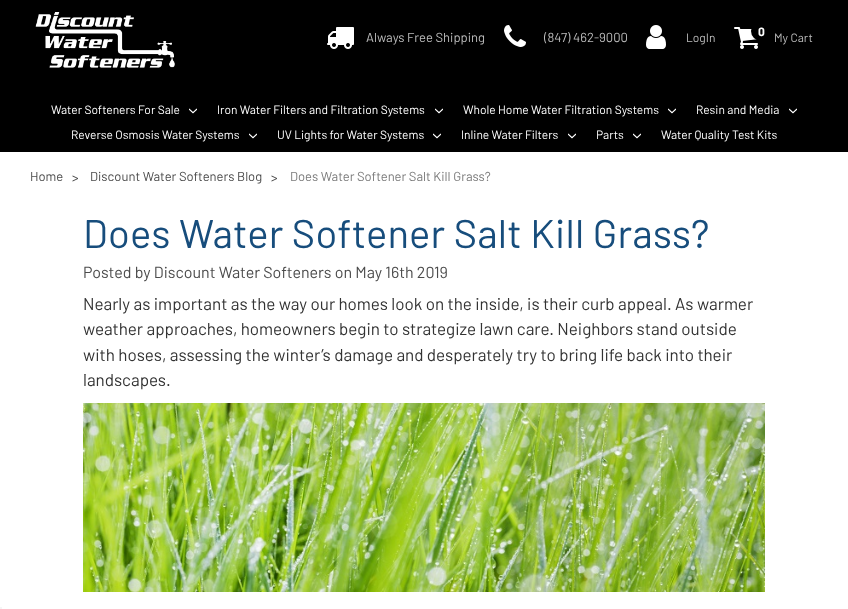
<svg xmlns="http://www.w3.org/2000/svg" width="848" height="609">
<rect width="100%" height="100%" fill="#fff"/>
<rect width="848" height="152" fill="#000"/>
<image x="35" y="12" width="140" height="56" href="media/1.png"/>
<image x="327" y="27" width="27" height="22" href="media/2.png"/>
<text x="366" y="42" style="font-family:Barlow;font-size:13px;fill:#bbb">Always Free Shipping</text>
<image x="504" y="25" width="22" height="22" href="media/3.png"/>
<text x="544" y="42" style="font-family:Barlow;font-size:13px;fill:#bbb">(847) 462-9000</text>
<image x="646" y="25" width="20" height="24" href="media/4.png"/>
<text x="686" y="42" style="font-family:Barlow;font-size:12px;fill:#bbb">LogIn</text>
<image x="734" y="27" width="24" height="22" href="media/5.png"/>
<circle cx="761" cy="31" r="10" fill="#000"/>
<text x="758" y="36" style="font-family:Barlow;font-size:12px;font-weight:bold;fill:#fff">0</text>
<text x="774" y="42" style="font-family:Barlow;font-size:12px;fill:#bbb">My Cart</text>
<text x="51" y="114" style="font-family:Barlow;font-size:12px;fill:#fff">Water Softeners For Sale</text>
<image x="189" y="108" width="8" height="6" href="media/6.png"/>
<text x="217" y="114" style="font-family:Barlow;font-size:12px;fill:#fff">Iron Water Filters and Filtration Systems</text>
<image x="435" y="108" width="8" height="6" href="media/6.png"/>
<text x="463" y="114" style="font-family:Barlow;font-size:12px;fill:#fff">Whole Home Water Filtration Systems</text>
<image x="668" y="108" width="8" height="6" href="media/6.png"/>
<text x="696" y="114" style="font-family:Barlow;font-size:12px;fill:#fff">Resin and Media</text>
<image x="789" y="108" width="8" height="6" href="media/6.png"/>
<text x="71" y="139" style="font-family:Barlow;font-size:12px;fill:#fff">Reverse Osmosis Water Systems</text>
<image x="249" y="133" width="8" height="6" href="media/6.png"/>
<text x="277" y="139" style="font-family:Barlow;font-size:12px;fill:#fff">UV Lights for Water Systems</text>
<image x="433" y="133" width="8" height="6" href="media/6.png"/>
<text x="461" y="139" style="font-family:Barlow;font-size:12px;fill:#fff">Inline Water Filters</text>
<image x="568" y="133" width="8" height="6" href="media/6.png"/>
<text x="596" y="139" style="font-family:Barlow;font-size:12px;fill:#fff">Parts</text>
<image x="633" y="133" width="8" height="6" href="media/6.png"/>
<text x="661" y="139" style="font-family:Barlow;font-size:12px;fill:#fff">Water Quality Test Kits</text>
<text x="30" y="181" style="font-family:Barlow;font-size:13px;fill:#4b4b4b">Home</text>
<text x="72" y="182" style="font-family:Barlow;font-size:13px;fill:#4b4b4b">&gt;</text>
<text x="90" y="181" style="font-family:Barlow;font-size:13px;fill:#4b4b4b">Discount Water Softeners Blog</text>
<text x="271" y="182" style="font-family:Barlow;font-size:13px;fill:#4b4b4b">&gt;</text>
<text x="290" y="181" style="font-family:Barlow;font-size:13px;fill:#7b7b7b">Does Water Softener Salt Kill Grass?</text>
<text x="83" y="248" style="font-family:Barlow;font-size:40px;letter-spacing:0.25px;fill:#174d7c">Does Water Softener Salt Kill Grass?</text>
<text x="83" y="278" style="font-family:Barlow;font-size:16px;fill:#4b4b4b">Posted by Discount Water Softeners on May 16th 2019</text>
<text x="83" y="310" style="font-family:Barlow;font-size:17px;fill:#333">Nearly as important as the way our homes look on the inside, is their curb appeal. As warmer</text>
<text x="83" y="335" style="font-family:Barlow;font-size:17px;fill:#333">weather approaches, homeowners begin to strategize lawn care. Neighbors stand outside</text>
<text x="83" y="361" style="font-family:Barlow;font-size:17px;fill:#333">with hoses, assessing the winter’s damage and desperately try to bring life back into their</text>
<text x="83" y="386" style="font-family:Barlow;font-size:17px;fill:#333">landscapes.</text>
<image x="83" y="403" width="682" height="189" href="media/7.png"/>
<rect y="607" width="2" height="2" fill="#f5f5f5"/>
</svg>
